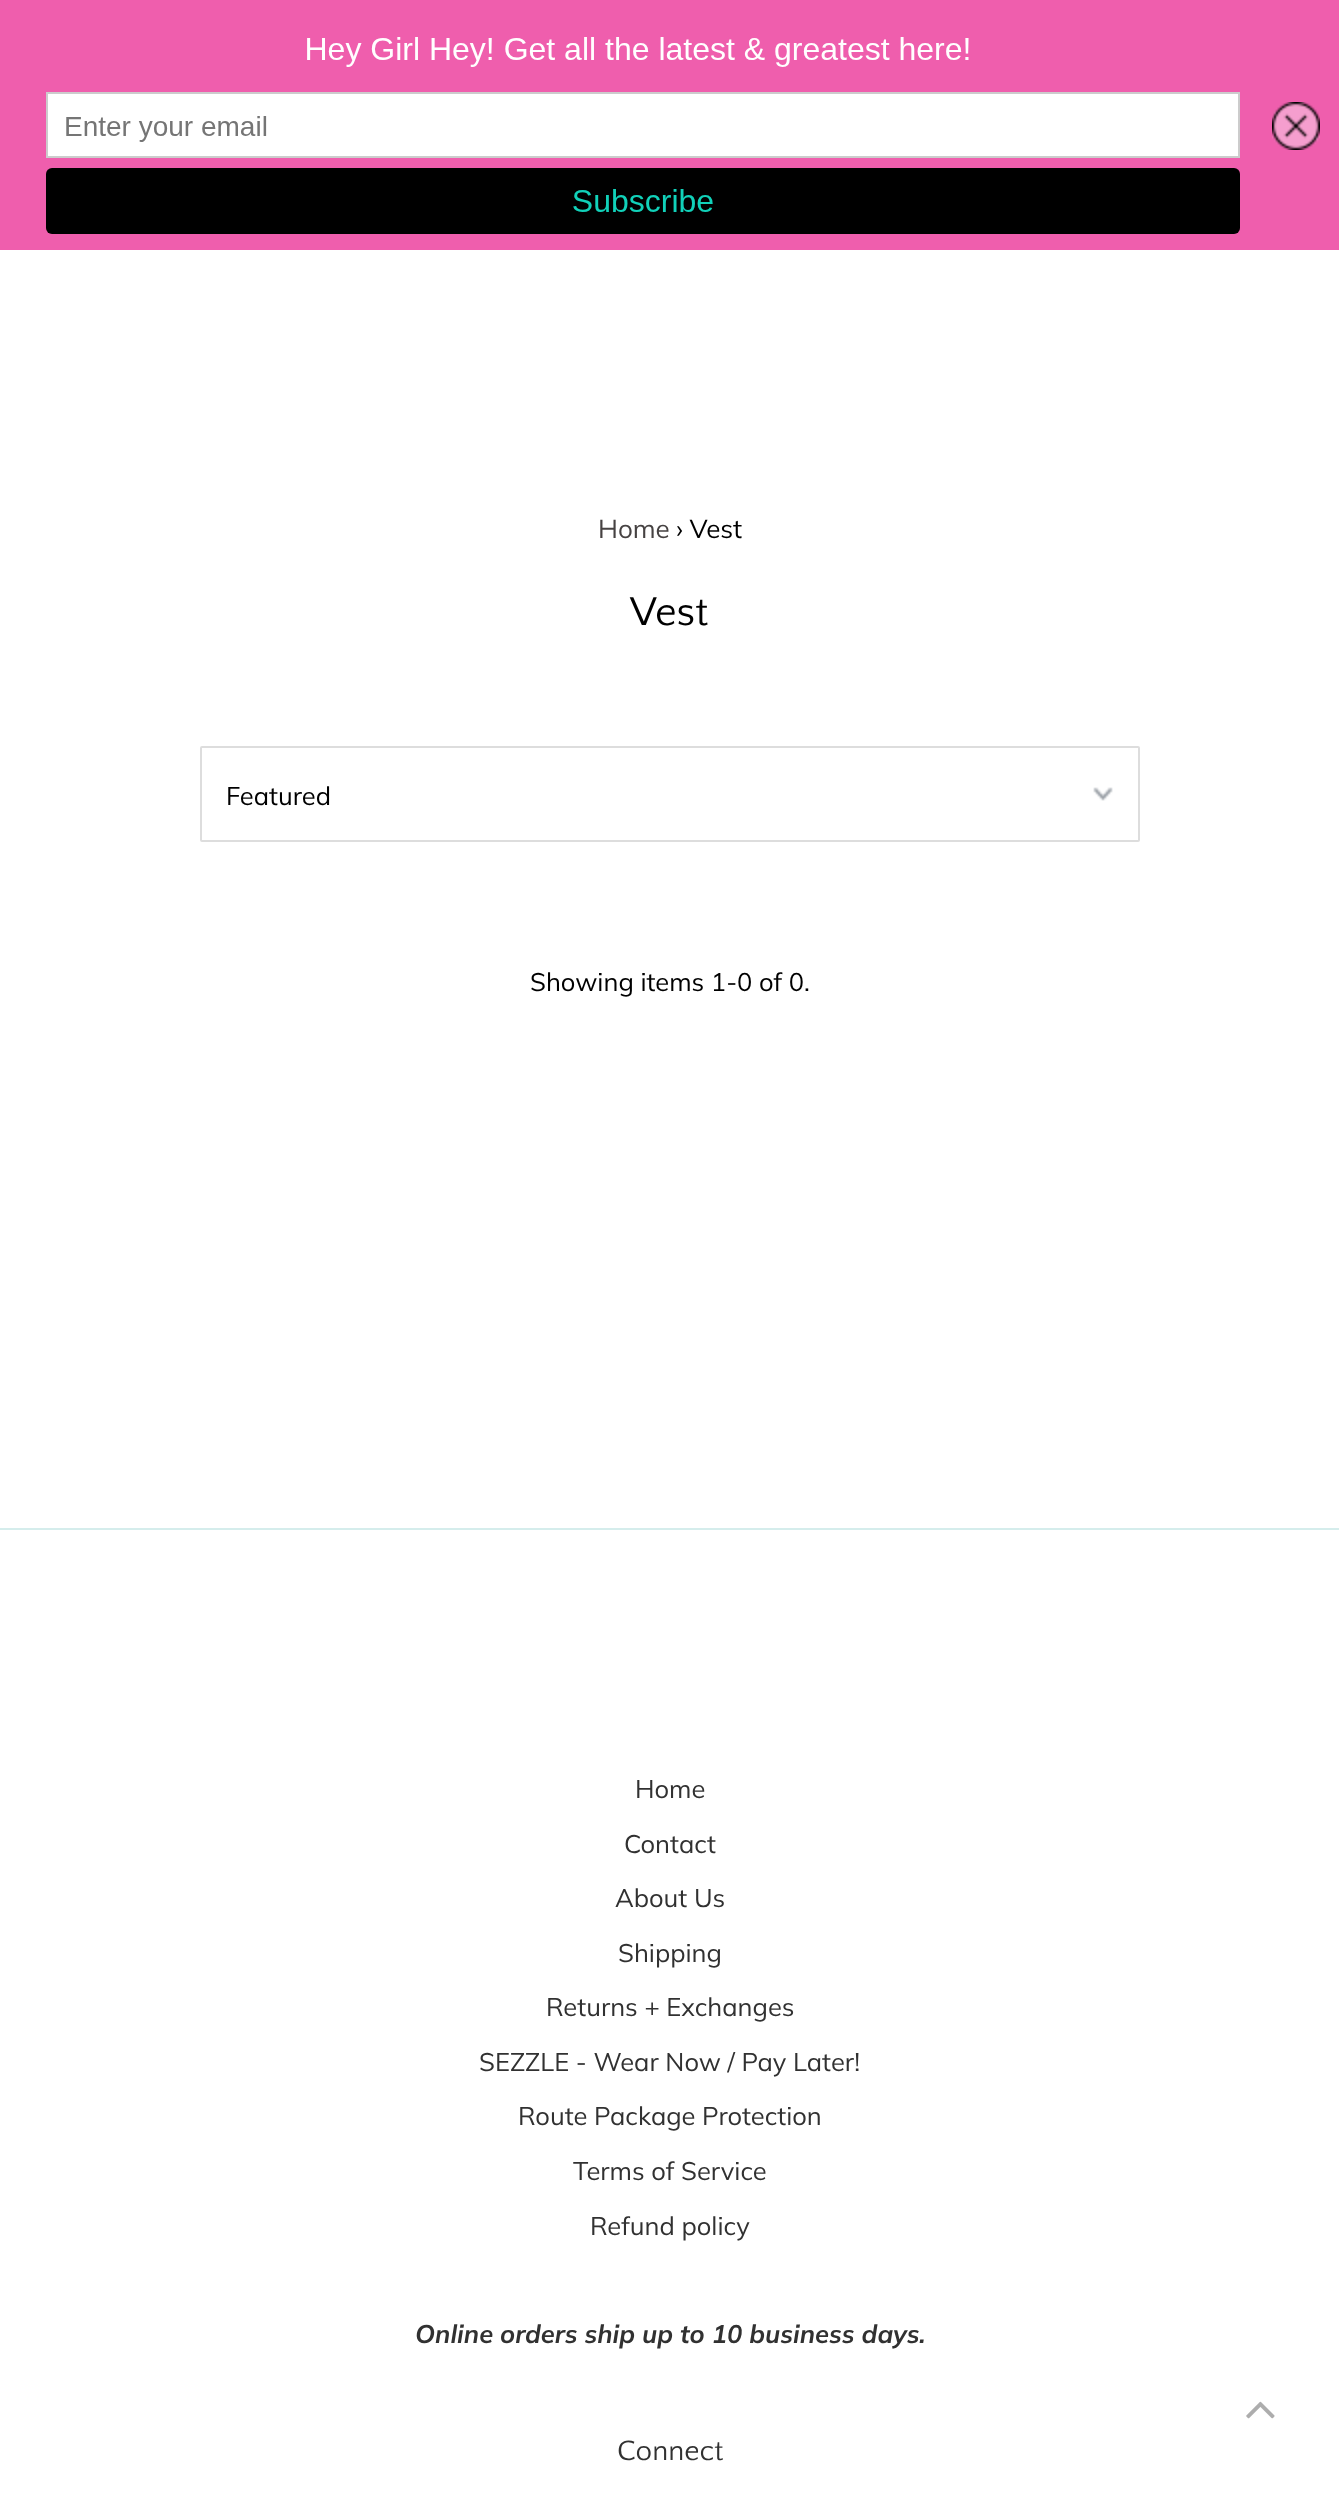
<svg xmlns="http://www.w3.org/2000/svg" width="1339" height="2495">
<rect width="100%" height="100%" fill="#fff"/>
<image x="0" y="0" width="1339" height="250" href="media/1.png"/>
<text x="598" y="538" style="font-family:Muli;font-size:26px;fill:#464242">Home</text>
<text x="676" y="538" style="font-family:Muli;font-size:26px;fill:#000">› Vest</text>
<text x="630" y="625" style="font-family:Quattrocento Sans;font-size:42px;fill:#000">Vest</text>
<image x="1093" y="787" width="20" height="14" href="media/2.png"/>
<rect x="201" y="747" width="938" height="94" rx="1" fill="none" stroke="#ddd" stroke-width="2"/>
<text x="226" y="805" style="font-family:Muli;font-size:25.5px;fill:#000">Featured</text>
<text x="530" y="991" style="font-family:Muli;font-size:25.5px;fill:#000">Showing items 1-0 of 0.</text>
<rect y="1528" width="1339" height="2" fill="#d5edec"/>
<text x="635" y="1798" style="font-family:Muli;font-size:25.5px;fill:#313131">Home</text>
<text x="624" y="1853" style="font-family:Muli;font-size:25.5px;fill:#313131">Contact</text>
<text x="615" y="1907" style="font-family:Muli;font-size:25.5px;fill:#313131">About Us</text>
<text x="618" y="1962" style="font-family:Muli;font-size:25.5px;fill:#313131">Shipping</text>
<text x="546" y="2016" style="font-family:Muli;font-size:25.5px;fill:#313131">Returns + Exchanges</text>
<text x="479" y="2071" style="font-family:Muli;font-size:25.5px;fill:#313131">SEZZLE - Wear Now / Pay Later!</text>
<text x="518" y="2125" style="font-family:Muli;font-size:25.5px;fill:#313131">Route Package Protection</text>
<text x="573" y="2180" style="font-family:Muli;font-size:25.5px;fill:#313131">Terms of Service</text>
<text x="590" y="2235" style="font-family:Muli;font-size:25.5px;fill:#313131">Refund policy</text>
<text x="415" y="2343" style="font-family:Muli;font-size:25.5px;font-weight:bold;font-style:italic;fill:#313131">Online orders ship up to 10 business days.</text>
<text x="617" y="2460" style="font-family:Quattrocento Sans;font-size:29.5px;fill:#313131">Connect</text>
<image x="1246" y="2401" width="29" height="18" href="media/3.png"/>
</svg>
